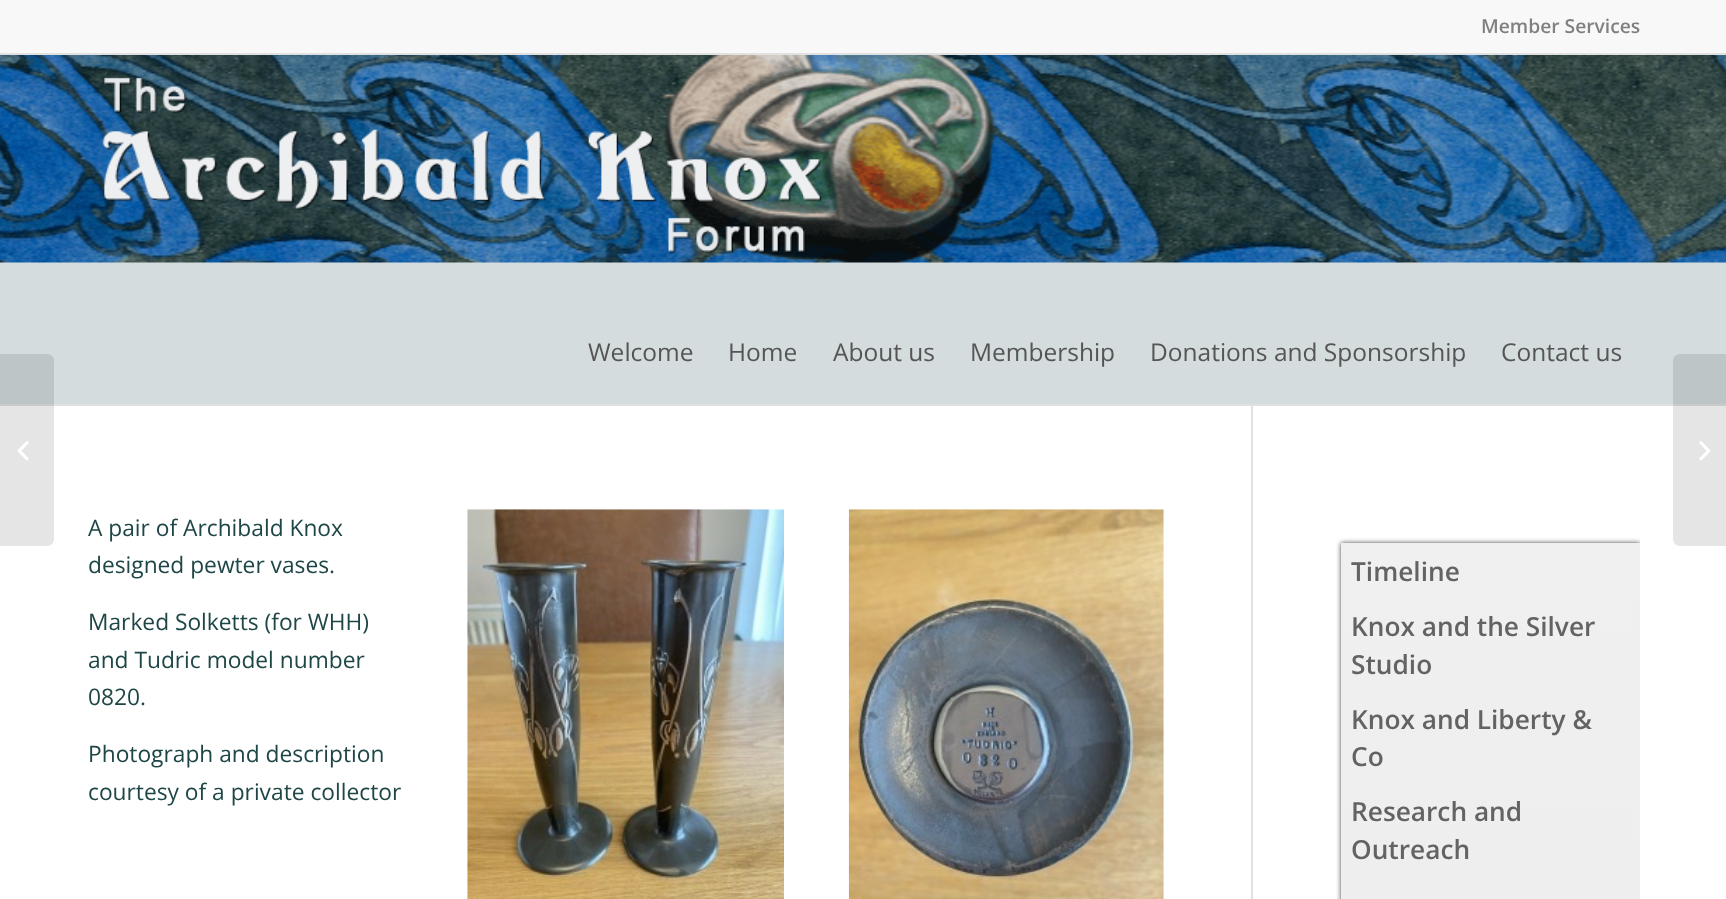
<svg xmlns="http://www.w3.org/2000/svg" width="1726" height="899">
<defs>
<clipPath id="clip1"><rect x="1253" y="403" width="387" height="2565"/></clipPath>
<linearGradient id="g1" gradientUnits="userSpaceOnUse" x1="1490" y1="544" x2="1490" y2="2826"><stop offset="0" stop-color="#f0f0f0"/><stop offset="1" stop-color="#e3e3e3"/></linearGradient>
</defs>
<rect width="100%" height="100%" fill="#fff"/>
<rect width="1726" height="53" fill="#f8f8f8"/>
<rect y="53" width="1726" height="2" fill="#e1e1e1"/>
<text x="1481" y="33" style="font-family:Open Sans;font-size:19.25px;font-weight:600;fill:#808080">Member Services</text>
<rect x="1251" y="403" width="2" height="496" fill="#e1e1e1"/>
<rect y="262" width="1726" height="142" fill="#d4dcde"/>
<image x="0" y="55" width="1726" height="208" href="media/1.png"/>
<rect y="404" width="1726" height="2" fill="#e1e1e1"/>
<image x="102" y="77" width="720" height="177" href="media/2.png"/>
<text x="588" y="361" style="font-family:Open Sans;font-size:24.5px;fill:#555">Welcome</text>
<text x="728" y="361" style="font-family:Open Sans;font-size:24.5px;fill:#555">Home</text>
<text x="833" y="361" style="font-family:Open Sans;font-size:24.5px;fill:#555">About us</text>
<text x="970" y="361" style="font-family:Open Sans;font-size:24.5px;fill:#555">Membership</text>
<text x="1150" y="361" style="font-family:Open Sans;font-size:24.5px;fill:#555">Donations and Sponsorship</text>
<text x="1501" y="361" style="font-family:Open Sans;font-size:24.5px;fill:#555">Contact us</text>
<path d="M0 354h47c4 0 7 3 7 7v178c0 4-3 7-7 7h-47z" fill="#0000001a"/>
<image x="17" y="441" width="12" height="20" href="media/3.png"/>
<path d="M1680 354h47v192h-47c-4 0-7-3-7-7v-178c0-4 3-7 7-7z" fill="#0000001a"/>
<image x="1699" y="441" width="12" height="20" href="media/4.png"/>
<text x="88" y="536" style="font-family:Open Sans;font-size:22.75px;fill:#1f4647">A pair of Archibald Knox</text>
<text x="88" y="573" style="font-family:Open Sans;font-size:22.75px;fill:#1f4647">designed pewter vases.</text>
<text x="88" y="630" style="font-family:Open Sans;font-size:22.75px;fill:#1f4647">Marked Solketts (for WHH)</text>
<text x="88" y="668" style="font-family:Open Sans;font-size:22.75px;fill:#1f4647">and Tudric model number</text>
<text x="88" y="705" style="font-family:Open Sans;font-size:22.75px;fill:#1f4647">0820.</text>
<text x="88" y="762" style="font-family:Open Sans;font-size:22.75px;fill:#1f4647">Photograph and description</text>
<text x="88" y="800" style="font-family:Open Sans;font-size:22.75px;fill:#1f4647">courtesy of a private collector</text>
<image x="467" y="509" width="317" height="390" href="media/5.png"/>
<image x="848" y="509" width="316" height="390" href="media/6.png"/>
<g clip-path="url(#clip1)">
<rect x="1341" y="543" width="299" height="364" fill="#444" filter="blur(2.5px)"/>
</g>
<rect x="1343" y="545" width="295" height="354" fill="url(#g1)"/>
<rect x="1342" y="544" width="297" height="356" fill="none" stroke="#efefef" stroke-width="2"/>
<text x="1351" y="581" style="font-family:Open Sans;font-size:26.25px;font-weight:600;fill:#636363">Timeline</text>
<text x="1351" y="636" style="font-family:Open Sans;font-size:26.25px;font-weight:600;fill:#636363">Knox and the Silver</text>
<text x="1351" y="674" style="font-family:Open Sans;font-size:26.25px;font-weight:600;fill:#636363">Studio</text>
<text x="1351" y="729" style="font-family:Open Sans;font-size:26.25px;font-weight:600;fill:#636363">Knox and Liberty &amp;</text>
<text x="1351" y="766" style="font-family:Open Sans;font-size:26.25px;font-weight:600;fill:#636363">Co</text>
<text x="1351" y="821" style="font-family:Open Sans;font-size:26.25px;font-weight:600;fill:#636363">Research and</text>
<text x="1351" y="859" style="font-family:Open Sans;font-size:26.25px;font-weight:600;fill:#636363">Outreach</text>
</svg>
